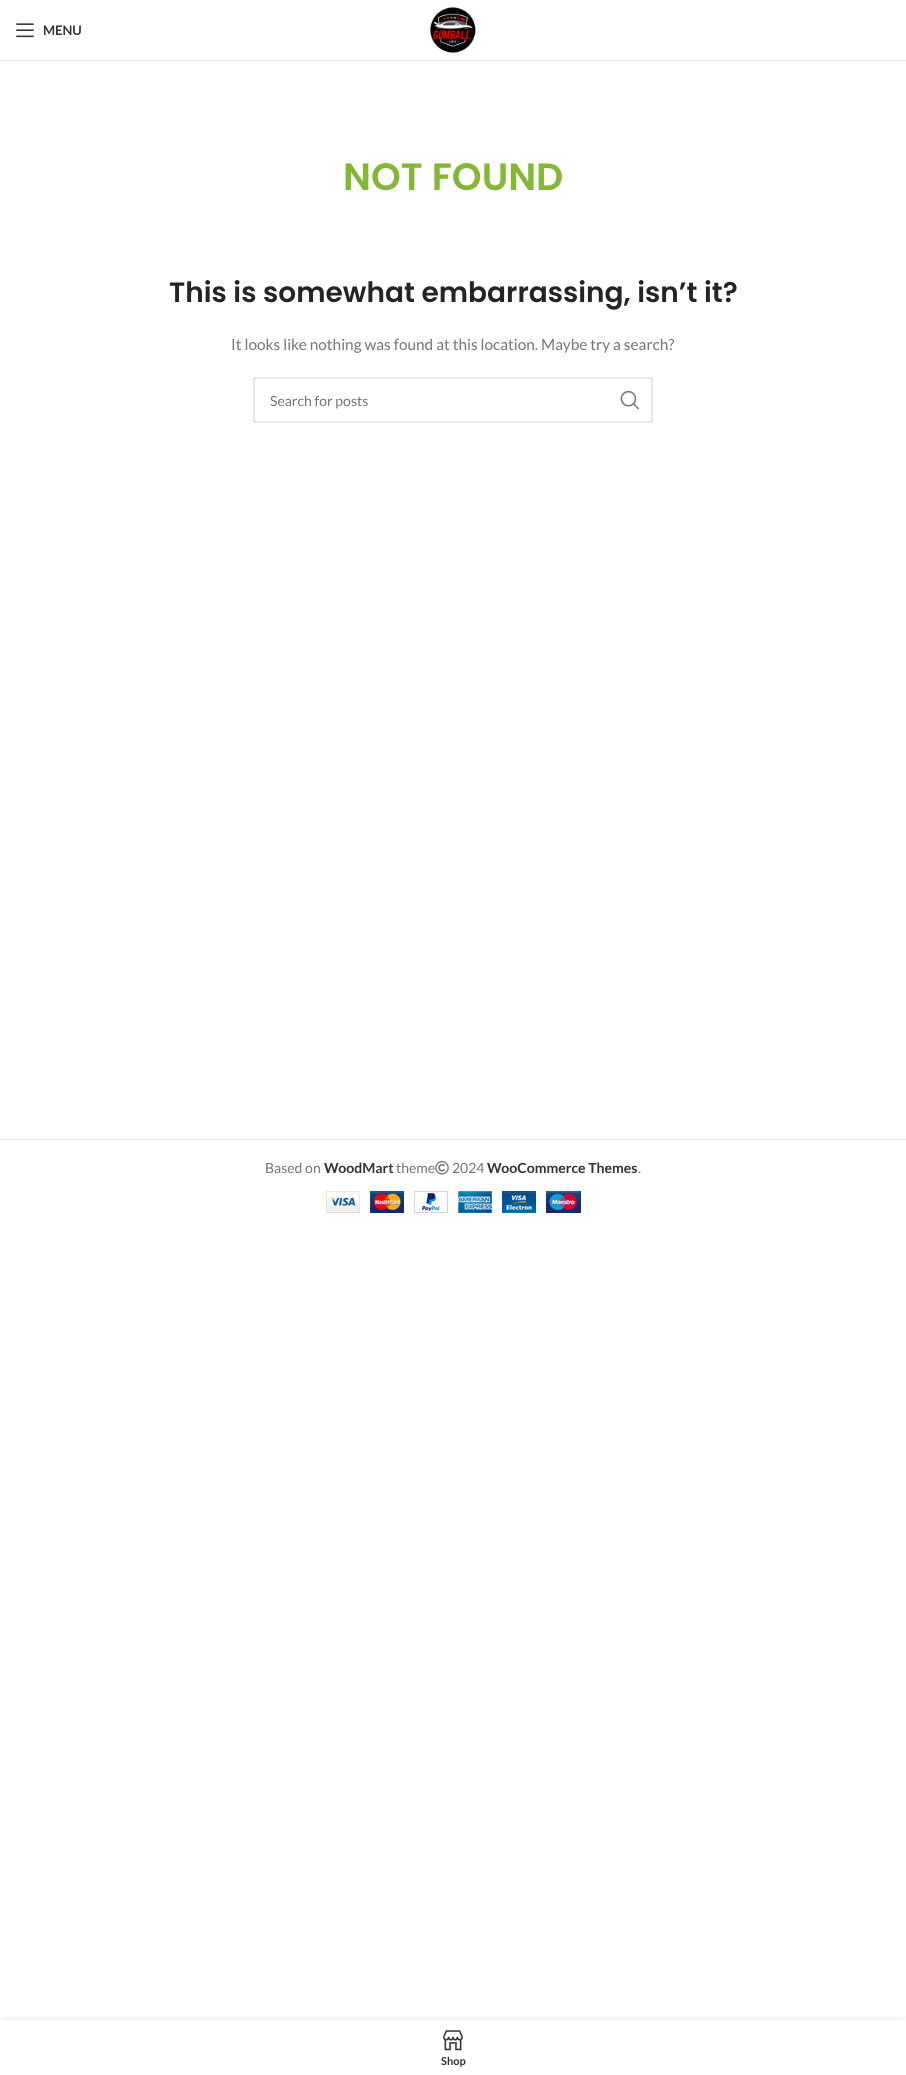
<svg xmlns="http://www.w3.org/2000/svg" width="906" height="2075">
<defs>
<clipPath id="clip1"><rect x="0" y="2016" width="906" height="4"/></clipPath>
</defs>
<rect width="100%" height="100%" fill="#fff"/>
<rect y="60" width="906" height="1" fill="#e6e6e6"/>
<image x="16" y="23" width="18" height="15" href="media/1.png"/>
<text x="43" y="35" style="font-family:Lato;font-size:13px;font-weight:bold;fill:#333">MENU</text>
<image x="430" y="7" width="46" height="46" href="media/2.png"/>
<text x="343" y="190" style="font-family:Poppins;font-size:38px;font-weight:600;fill:#83b735">NOT FOUND</text>
<text x="169" y="302" style="font-family:Poppins;font-size:28px;font-weight:600;fill:#242424">This is somewhat embarrassing, isn’t it?</text>
<text x="231" y="350" style="font-family:Lato;font-size:15.4px;fill:#777">It looks like nothing was found at this location. Maybe try a search?</text>
<rect x="254" y="378" width="398" height="44" fill="none" stroke="#e6e6e6" stroke-width="2"/>
<text x="270" y="406" style="font-family:Lato;font-size:14px;fill:#777">Search for posts</text>
<image x="620" y="390" width="20" height="20" href="media/3.png"/>
<rect y="1139" width="906" height="1" fill="#e4e4e4"/>
<text x="265" y="1173" style="font-family:Lato;font-size:14px;fill:#777">Based on</text>
<text x="324" y="1173" style="font-family:Lato;font-size:14px;font-weight:bold;fill:#333">WoodMart</text>
<text x="396" y="1173" style="font-family:Lato;font-size:14px;fill:#777">theme</text>
<image x="435" y="1161" width="14" height="14" href="media/4.png"/>
<text x="452" y="1173" style="font-family:Lato;font-size:14px;fill:#777">2024</text>
<text x="487" y="1173" style="font-family:Lato;font-size:14px;font-weight:bold;fill:#333">WooCommerce Themes</text>
<text x="638" y="1173" style="font-family:Lato;font-size:14px;fill:#777">.</text>
<image x="326" y="1191" width="255" height="22" href="media/5.png"/>
<g clip-path="url(#clip1)">
<rect y="2020" width="906" height="55" fill="#0000001f" filter="blur(4.5px)"/>
</g>
<image x="443" y="2030" width="20" height="21" href="media/6.png"/>
<text x="441" y="2065" style="font-family:Lato;font-size:11px;font-weight:bold;fill:#333">Shop</text>
</svg>
